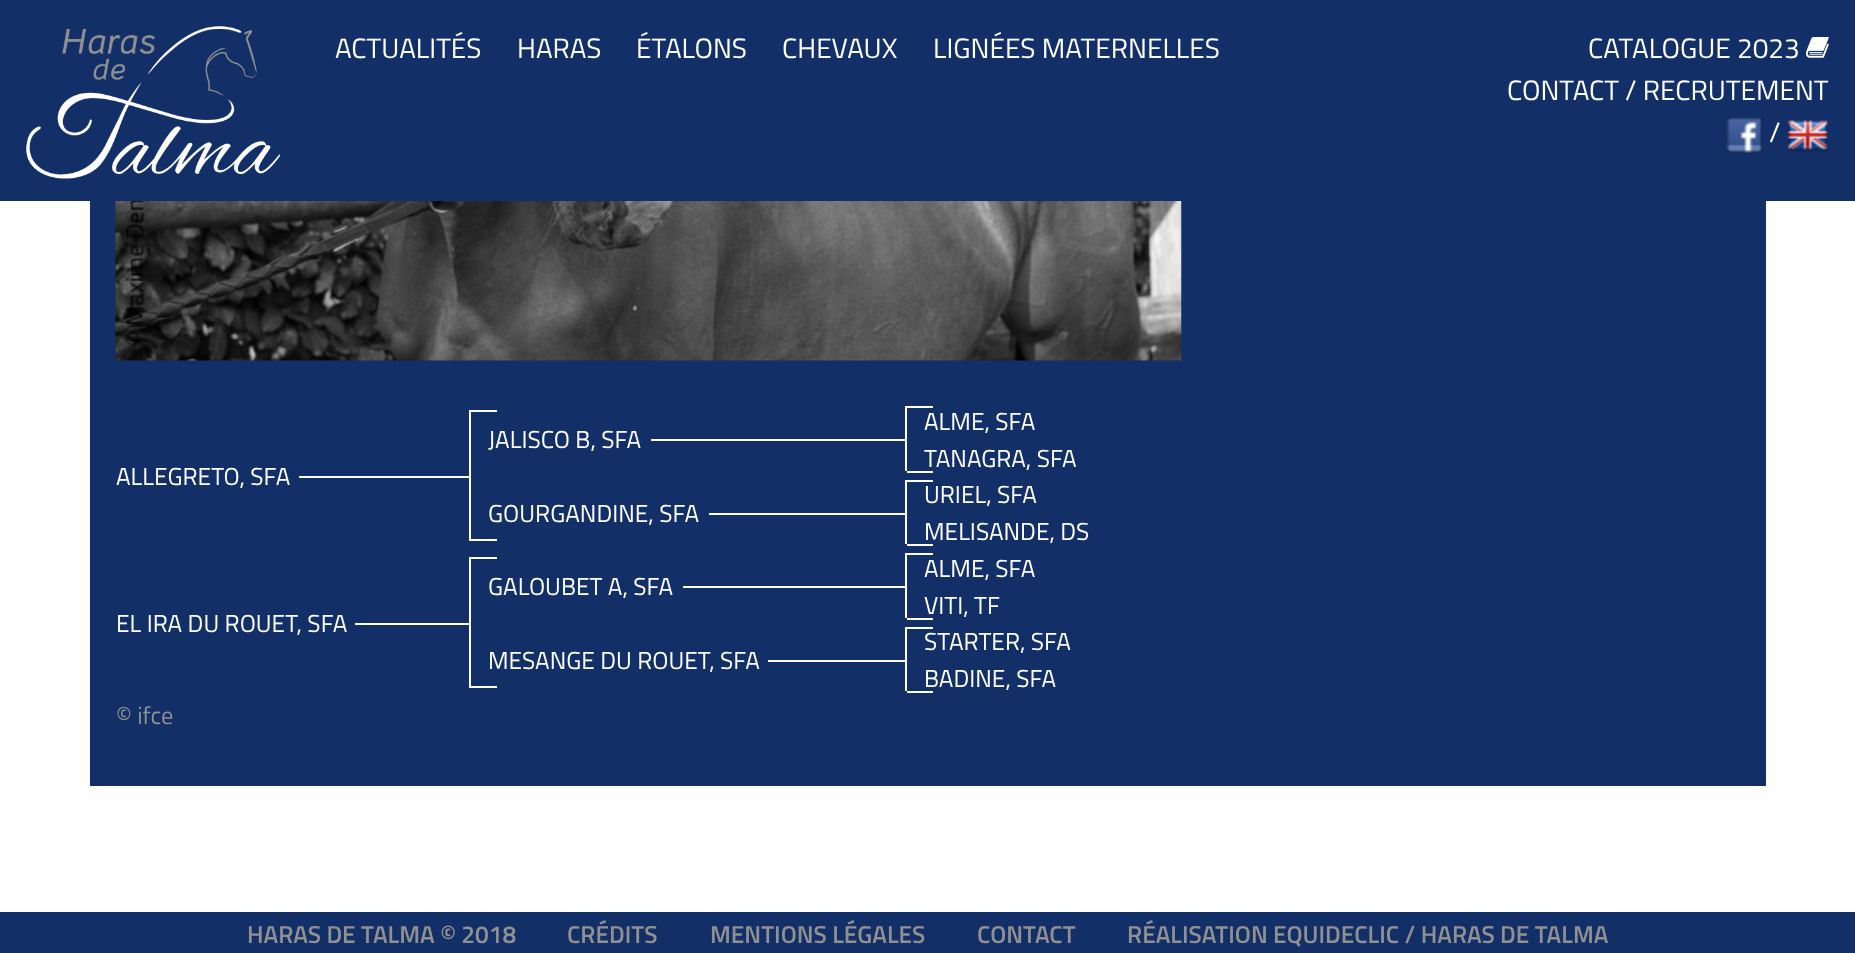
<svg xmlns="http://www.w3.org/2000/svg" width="1855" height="953">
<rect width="100%" height="100%" fill="#fff"/>
<rect width="1855" height="201" fill="#132f67"/>
<image x="26" y="26" width="254" height="153" href="media/1.png"/>
<text x="335" y="58" style="font-family:Titillium Web;font-size:28px;fill:#fff">ACTUALITÉS</text>
<text x="517" y="58" style="font-family:Titillium Web;font-size:28px;fill:#fff">HARAS</text>
<text x="636" y="58" style="font-family:Titillium Web;font-size:28px;fill:#fff">ÉTALONS</text>
<text x="782" y="58" style="font-family:Titillium Web;font-size:28px;fill:#fff">CHEVAUX</text>
<text x="933" y="58" style="font-family:Titillium Web;font-size:28px;fill:#fff">LIGNÉES MATERNELLES</text>
<text x="1588" y="58" style="font-family:Titillium Web;font-size:28px;fill:#fff">CATALOGUE 2023</text>
<image x="1806" y="37" width="23" height="21" href="media/2.png"/>
<text x="1507" y="100" style="font-family:Titillium Web;font-size:28px;fill:#fff">CONTACT</text>
<text x="1625" y="100" style="font-family:Titillium Web;font-size:28px;fill:#fff">/ RECRUTEMENT</text>
<image x="1726" y="117" width="37" height="37" href="media/3.png"/>
<text x="1769" y="142" style="font-family:Titillium Web;font-size:28px;fill:#fff">/</text>
<image x="1787" y="119" width="42" height="33" href="media/4.png"/>
<rect x="90" y="201" width="1676" height="585" fill="#132f67"/>
<image x="115" y="201" width="1067" height="160" href="media/5.png"/>
<text x="924" y="430" style="font-family:Titillium Web;font-size:24.5px;fill:#fff">ALME, SFA</text>
<rect x="907" y="406" width="26" height="2" fill="#fff"/>
<text x="488" y="448" style="font-family:Titillium Web;font-size:24.5px;fill:#fff">JALISCO B, SFA</text>
<rect x="907" y="471" width="26" height="2" fill="#fff"/>
<rect x="905" y="406" width="2" height="65" fill="#fff"/>
<rect x="651" y="439" width="256" height="2" fill="#fff"/>
<rect x="471" y="410" width="26" height="2" fill="#fff"/>
<text x="116" y="485" style="font-family:Titillium Web;font-size:24.5px;fill:#fff">ALLEGRETO, SFA</text>
<rect x="471" y="539" width="26" height="2" fill="#fff"/>
<rect x="469" y="410" width="2" height="131" fill="#fff"/>
<rect x="299" y="476" width="172" height="2" fill="#fff"/>
<text x="924" y="467" style="font-family:Titillium Web;font-size:24.5px;fill:#fff">TANAGRA, SFA</text>
<text x="924" y="503" style="font-family:Titillium Web;font-size:24.5px;fill:#fff">URIEL, SFA</text>
<rect x="907" y="480" width="26" height="2" fill="#fff"/>
<text x="488" y="522" style="font-family:Titillium Web;font-size:24.5px;fill:#fff">GOURGANDINE, SFA</text>
<rect x="907" y="544" width="26" height="2" fill="#fff"/>
<rect x="905" y="480" width="2" height="64" fill="#fff"/>
<rect x="709" y="513" width="198" height="2" fill="#fff"/>
<text x="924" y="540" style="font-family:Titillium Web;font-size:24.5px;fill:#fff">MELISANDE, DS</text>
<text x="924" y="577" style="font-family:Titillium Web;font-size:24.5px;fill:#fff">ALME, SFA</text>
<rect x="907" y="553" width="26" height="2" fill="#fff"/>
<text x="488" y="595" style="font-family:Titillium Web;font-size:24.5px;fill:#fff">GALOUBET A, SFA</text>
<rect x="907" y="618" width="26" height="2" fill="#fff"/>
<rect x="905" y="553" width="2" height="65" fill="#fff"/>
<rect x="683" y="586" width="224" height="2" fill="#fff"/>
<rect x="471" y="557" width="26" height="2" fill="#fff"/>
<text x="116" y="632" style="font-family:Titillium Web;font-size:24.5px;fill:#fff">EL IRA DU ROUET, SFA</text>
<rect x="471" y="686" width="26" height="2" fill="#fff"/>
<rect x="469" y="557" width="2" height="131" fill="#fff"/>
<rect x="355" y="623" width="116" height="2" fill="#fff"/>
<text x="924" y="614" style="font-family:Titillium Web;font-size:24.5px;fill:#fff">VITI, TF</text>
<text x="924" y="650" style="font-family:Titillium Web;font-size:24.5px;fill:#fff">STARTER, SFA</text>
<rect x="907" y="627" width="26" height="2" fill="#fff"/>
<text x="488" y="669" style="font-family:Titillium Web;font-size:24.5px;fill:#fff">MESANGE DU ROUET, SFA</text>
<rect x="907" y="691" width="26" height="2" fill="#fff"/>
<rect x="905" y="627" width="2" height="64" fill="#fff"/>
<rect x="768" y="660" width="139" height="2" fill="#fff"/>
<text x="924" y="687" style="font-family:Titillium Web;font-size:24.5px;fill:#fff">BADINE, SFA</text>
<text x="116" y="724" style="font-family:Titillium Web;font-size:24.5px;fill:#909090">© ifce</text>
<rect y="912" width="1855" height="41" fill="#132f67"/>
<text x="247" y="943" style="font-family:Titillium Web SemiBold;font-size:24.5px;font-weight:600;fill:#909090">HARAS DE TALMA © 2018</text>
<text x="567" y="943" style="font-family:Titillium Web SemiBold;font-size:24.5px;font-weight:600;fill:#909090">CRÉDITS</text>
<text x="710" y="943" style="font-family:Titillium Web SemiBold;font-size:24.5px;font-weight:600;fill:#909090">MENTIONS LÉGALES</text>
<text x="977" y="943" style="font-family:Titillium Web SemiBold;font-size:24.5px;font-weight:600;fill:#909090">CONTACT</text>
<text x="1127" y="943" style="font-family:Titillium Web SemiBold;font-size:24.5px;font-weight:600;fill:#909090">RÉALISATION EQUIDECLIC / HARAS DE TALMA</text>
</svg>
